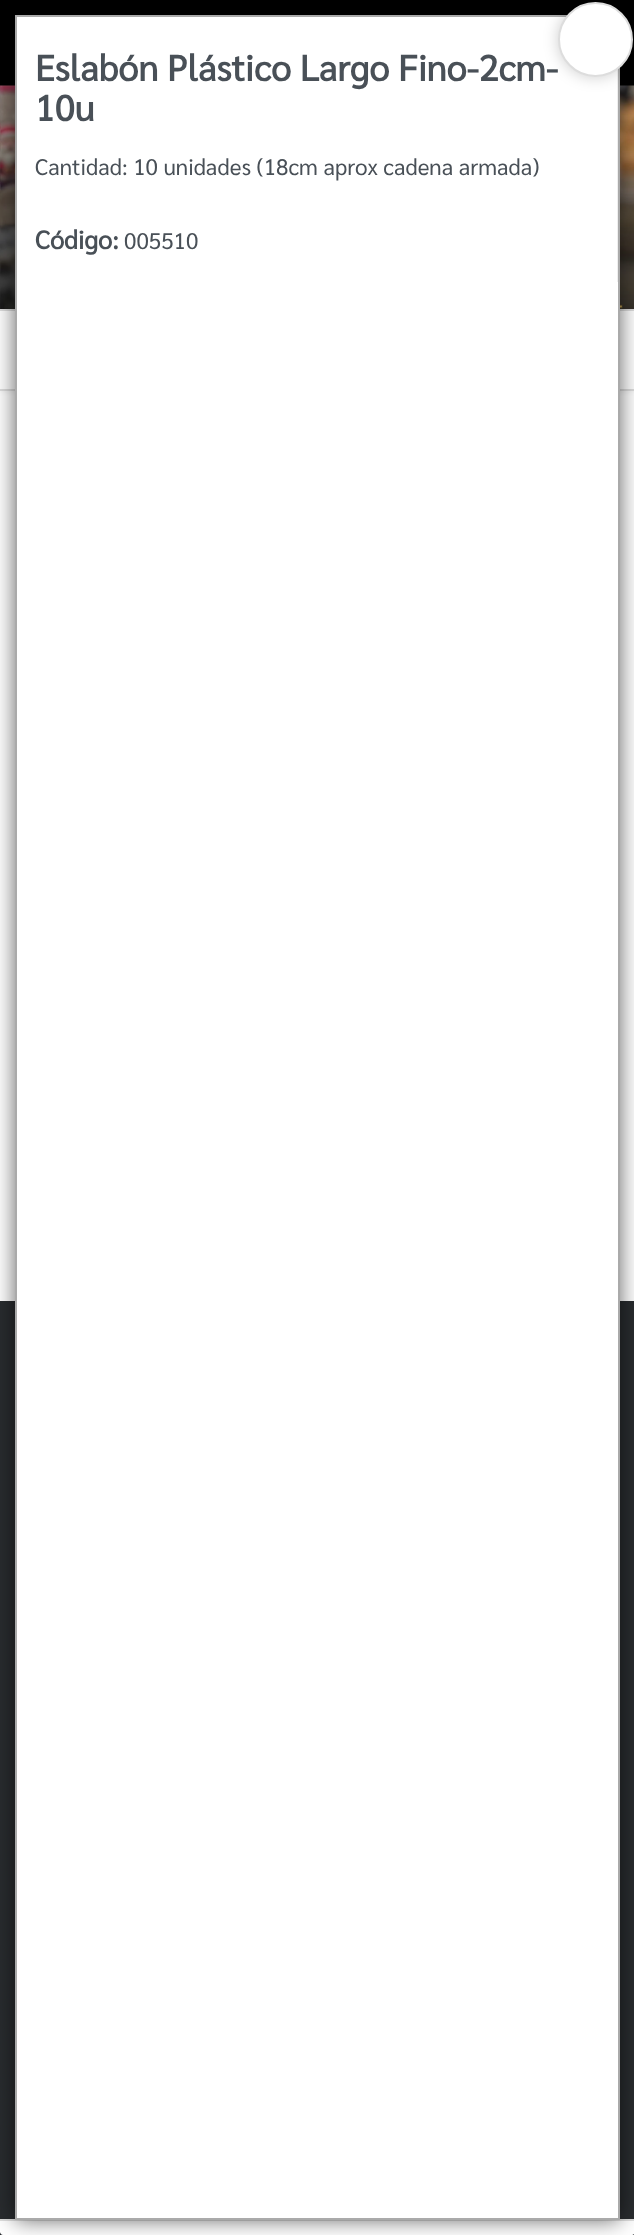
<svg xmlns="http://www.w3.org/2000/svg" width="634" height="2235">
<defs>
<clipPath id="clip1"><path d="M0 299h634v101h-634zm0 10h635v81h-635z" clip-rule="evenodd"/></clipPath>
</defs>
<rect width="100%" height="100%" fill="#fff"/>
<rect width="634" height="86" fill="#000"/>
<image x="0" y="85" width="634" height="224" href="media/1.png"/>
<g clip-path="url(#clip1)">
<rect y="309" width="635" height="81" fill="#0000001a" filter="blur(3px)"/>
</g>
<rect y="309" width="634" height="2" fill="#ddd"/>
<rect y="389" width="634" height="2" fill="#ddd"/>
<rect y="1301" width="634" height="934" fill="#292c2f"/>
<path d="M0 2219h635v13c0 1.5-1.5 3-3 3h-629c-1.5 0-3-1.5-3-3z" fill="#fff"/>
<rect y="2219" width="634" height="2" fill="#ddd"/>
<rect x="15" y="15" width="605" height="2205" fill="#00000099" filter="blur(11px)"/>
<rect x="16" y="16" width="603" height="2203" fill="#fff" stroke="#aaa" stroke-width="2"/>
<rect x="617" y="69" width="1" height="213" fill="#eee"/>
<text x="35" y="81" style="font-family:Sarabun;font-size:36px;font-weight:bold;fill:#495057">Eslabón Plástico Largo Fino-2cm-</text>
<text x="35" y="121" style="font-family:Sarabun;font-size:36px;font-weight:bold;fill:#495057">10u</text>
<text x="35" y="175" style="font-family:Sarabun;font-size:22.5px;fill:#495057">Cantidad: 10 unidades (18cm aprox cadena armada)</text>
<text x="35" y="249" style="font-family:Sarabun;font-size:25.5px;font-weight:bold;fill:#495057">Código:</text>
<text x="124" y="249" style="font-family:Sarabun;font-size:22.5px;fill:#495057">005510</text>
<rect x="558" y="2" width="75" height="75" rx="37.5" fill="#00000033" filter="blur(7.5px)"/>
<circle cx="595.5" cy="39.5" r="36.5" fill="#fff" stroke="#ddd" stroke-width="2"/>
</svg>
